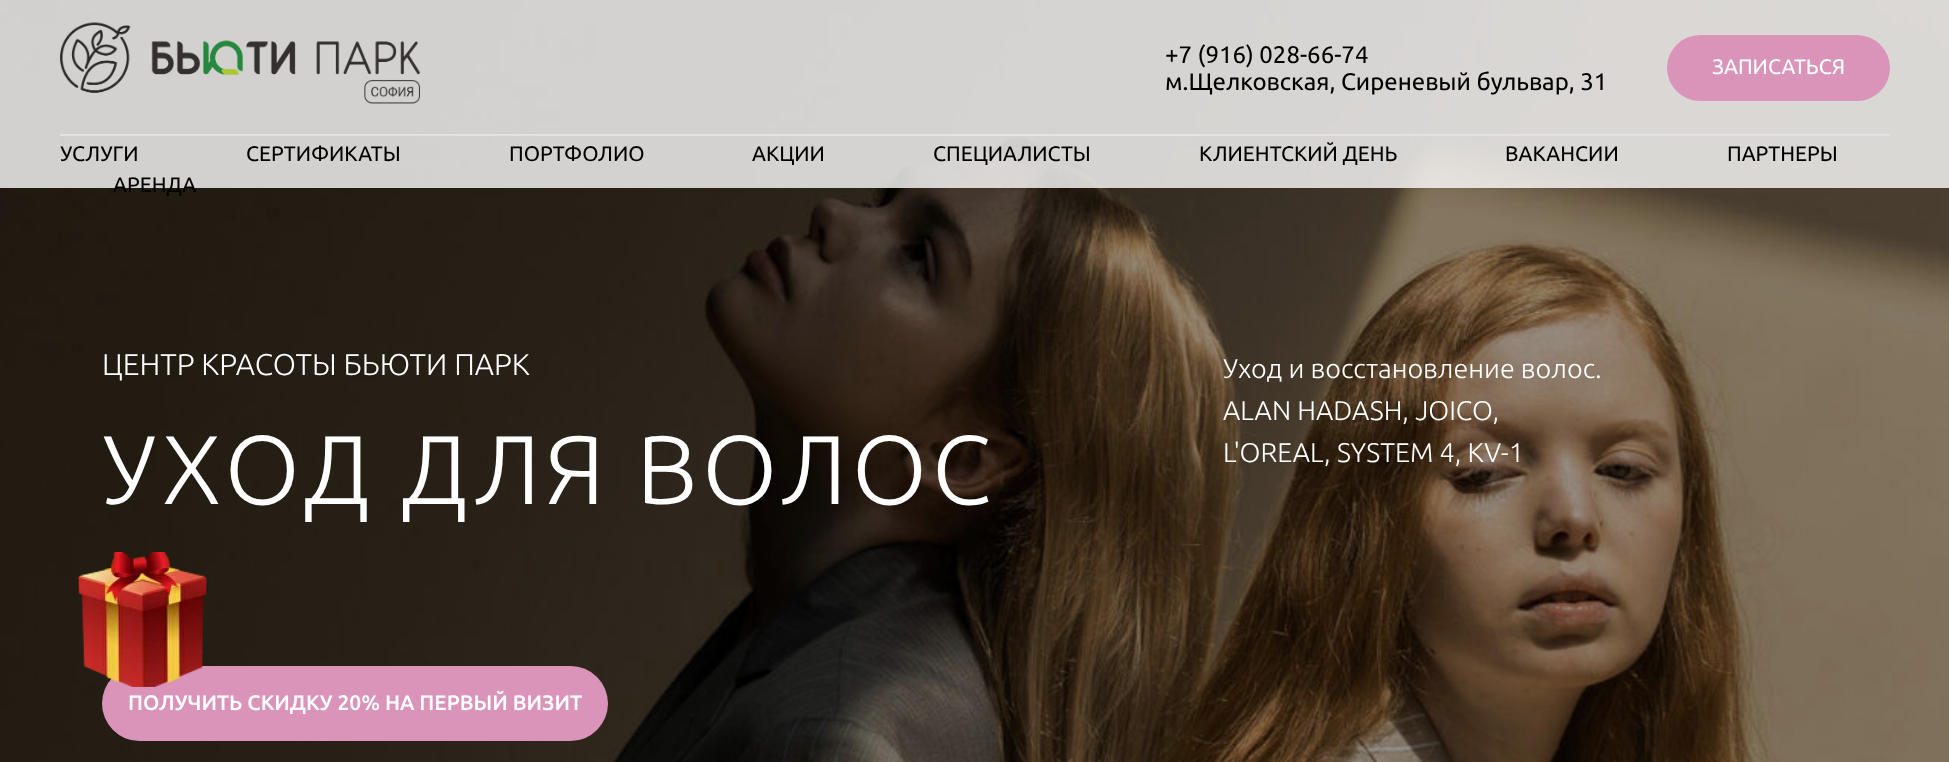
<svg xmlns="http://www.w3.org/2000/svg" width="1949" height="762">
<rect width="100%" height="100%" fill="#fff"/>
<image x="0" y="0" width="1949" height="762" href="media/2.png"/>
<rect width="1949" height="188" fill="#ffffffcc"/>
<image x="60" y="22" width="360" height="82" href="media/1.png"/>
<text x="1165" y="63" style="font-family:Ubuntu;font-size:24px;fill:#000">+7 (916) 028-66-74</text>
<text x="1165" y="90" style="font-family:Ubuntu;font-size:24px;fill:#000">м.Щелковская, Сиреневый бульвар, 31</text>
<rect x="1667" y="35" width="223" height="66" rx="33" fill="#da94ba"/>
<text x="1712" y="74" style="font-family:Ubuntu;font-size:21px;fill:#fff">ЗАПИСАТЬСЯ</text>
<rect x="60" y="134" width="1830" height="2" fill="#e2e2e2"/>
<text x="60" y="161" style="font-family:Ubuntu;font-size:21px;fill:#000">УСЛУГИ</text>
<text x="246" y="161" style="font-family:Ubuntu;font-size:21px;fill:#000">СЕРТИФИКАТЫ</text>
<text x="509" y="161" style="font-family:Ubuntu;font-size:21px;fill:#000">ПОРТФОЛИО</text>
<text x="752" y="161" style="font-family:Ubuntu;font-size:21px;fill:#000">АКЦИИ</text>
<text x="933" y="161" style="font-family:Ubuntu;font-size:21px;fill:#000">СПЕЦИАЛИСТЫ</text>
<text x="1199" y="161" style="font-family:Ubuntu;font-size:21px;fill:#000">КЛИЕНТСКИЙ ДЕНЬ</text>
<text x="1505" y="161" style="font-family:Ubuntu;font-size:21px;fill:#000">ВАКАНСИИ</text>
<text x="1727" y="161" style="font-family:Ubuntu;font-size:21px;fill:#000">ПАРТНЕРЫ</text>
<text x="113" y="192" style="font-family:Ubuntu;font-size:21px;fill:#000">АРЕНДА</text>
<text x="102" y="375" style="font-family:Ubuntu;font-size:30px;font-weight:300;fill:#fff">ЦЕНТР КРАСОТЫ БЬЮТИ ПАРК</text>
<text x="1223" y="378" style="font-family:Ubuntu;font-size:27px;font-weight:300;fill:#fff">Уход и восстановление волос.</text>
<text x="1223" y="420" style="font-family:Ubuntu;font-size:27px;font-weight:300;fill:#fff">ALAN HADASH, JOICO,</text>
<text x="1223" y="462" style="font-family:Ubuntu;font-size:27px;font-weight:300;fill:#fff">L'OREAL, SYSTEM 4, KV-1</text>
<text x="102" y="504" style="font-family:Ubuntu;font-size:97.5px;font-weight:300;letter-spacing:4.5px;fill:#fff">УХОД ДЛЯ ВОЛОС</text>
<rect x="102" y="666" width="506" height="75" rx="37.5" fill="#da94ba"/>
<text x="128" y="710" style="font-family:Ubuntu;font-size:21px;font-weight:500;fill:#fff">ПОЛУЧИТЬ СКИДКУ 20% НА ПЕРВЫЙ ВИЗИТ</text>
<image x="77" y="552" width="131" height="135" href="media/3.png"/>
</svg>
